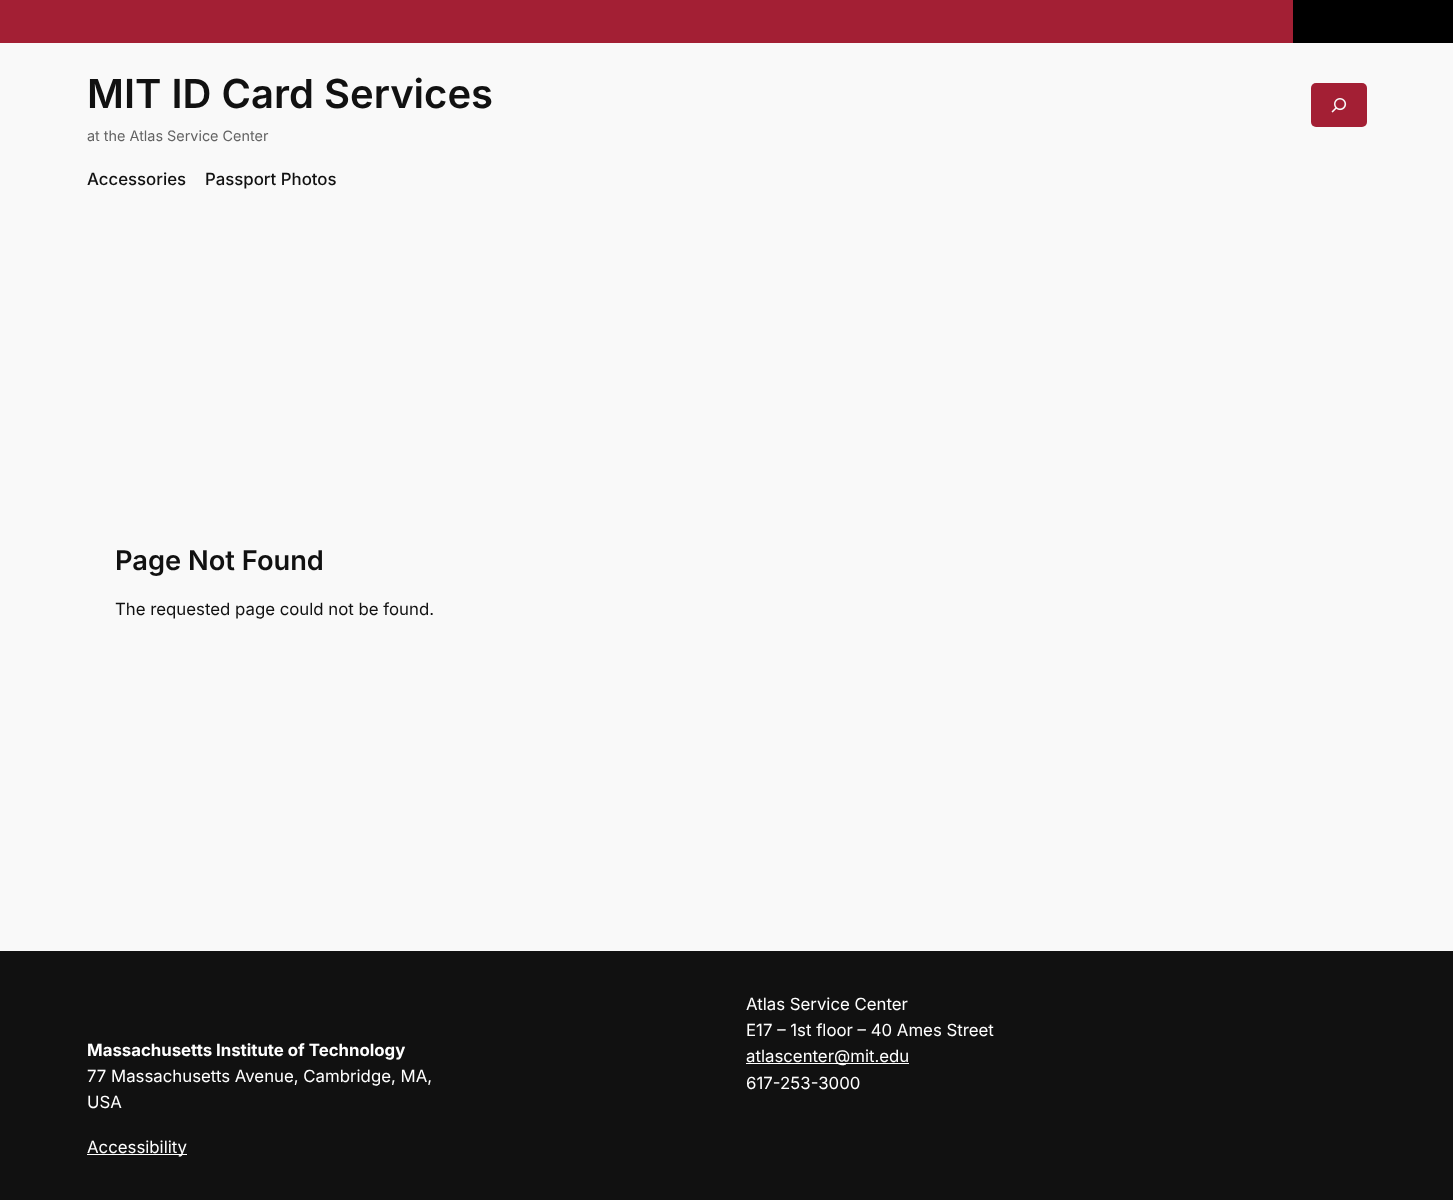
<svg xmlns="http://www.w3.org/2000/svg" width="1453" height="1200">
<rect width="100%" height="100%" fill="#f9f9f9"/>
<rect width="1293" height="43" fill="#a31f34"/>
<rect x="1293" width="160" height="43" fill="#000"/>
<text x="87" y="108" style="font-family:Inter;font-size:40px;font-weight:600;fill:#111">MIT ID Card Services</text>
<text x="87" y="141" style="font-family:Inter;font-size:14.4px;fill:#636363">at the Atlas Service Center</text>
<rect x="1311" y="83" width="56" height="44" rx="5" fill="#a31f34"/>
<image x="1331" y="98" width="16" height="15" href="media/1.png"/>
<text x="87" y="185" style="font-family:Inter;font-size:16.8px;font-weight:500;fill:#111">Accessories</text>
<text x="205" y="185" style="font-family:Inter;font-size:16.8px;font-weight:500;fill:#111">Passport Photos</text>
<text x="115" y="570" style="font-family:Inter;font-size:27.25px;font-weight:600;fill:#111">Page Not Found</text>
<text x="115" y="615" style="font-family:Inter;font-size:16.8px;fill:#111">The requested page could not be found.</text>
<rect y="951" width="1453" height="249" fill="#111"/>
<text x="87" y="1056" style="font-family:Inter;font-size:16.8px;font-weight:bold;fill:#fff">Massachusetts Institute of Technology</text>
<text x="87" y="1082" style="font-family:Inter;font-size:16.8px;fill:#fff">77 Massachusetts Avenue, Cambridge, MA,</text>
<text x="87" y="1108" style="font-family:Inter;font-size:16.8px;fill:#fff">USA</text>
<rect x="87" y="1154" width="100" height="1" fill="#fff"/>
<text x="87" y="1153" style="font-family:Inter;font-size:16.8px;fill:#fff">Accessibility</text>
<text x="746" y="1010" style="font-family:Inter;font-size:16.8px;fill:#fff">Atlas Service Center</text>
<text x="746" y="1036" style="font-family:Inter;font-size:16.8px;fill:#fff">E17 – 1st floor – 40 Ames Street</text>
<rect x="746" y="1063" width="163" height="1" fill="#fff"/>
<text x="746" y="1062" style="font-family:Inter;font-size:16.8px;fill:#fff">atlascenter@mit.edu</text>
<text x="746" y="1089" style="font-family:Inter;font-size:16.8px;fill:#fff">617-253-3000</text>
</svg>
